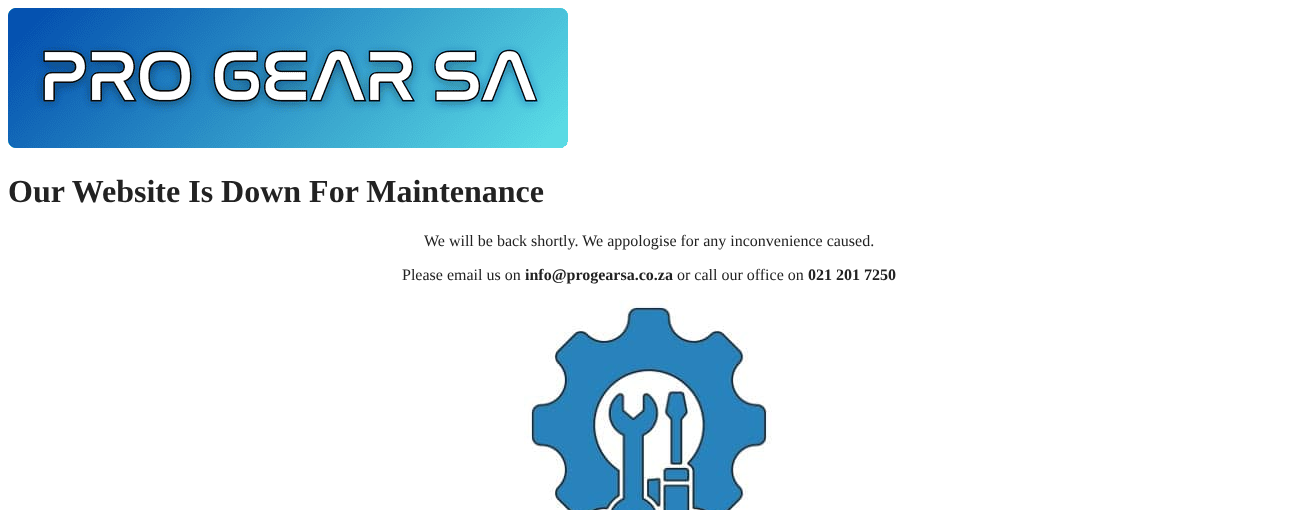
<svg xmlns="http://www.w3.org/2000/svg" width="1298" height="510">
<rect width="100%" height="100%" fill="#fff"/>
<image x="8" y="8" width="560" height="140" href="media/1.png"/>
<text x="8" y="202" style="font-family:Liberation Serif;font-size:32px;font-weight:bold;fill:#222">Our Website Is Down For Maintenance</text>
<text x="424" y="246" style="font-family:Liberation Serif;font-size:16px;fill:#222">We will be back shortly. We appologise for any inconvenience caused.</text>
<text x="402" y="280" style="font-family:Liberation Serif;font-size:16px;fill:#222">Please email us on</text>
<text x="525" y="280" style="font-family:Liberation Serif;font-size:16px;font-weight:bold;fill:#222">info@progearsa.co.za</text>
<text x="677" y="280" style="font-family:Liberation Serif;font-size:16px;fill:#222">or call our office on</text>
<text x="808" y="280" style="font-family:Liberation Serif;font-size:16px;font-weight:bold;fill:#222">021 201 7250</text>
<image x="524" y="300" width="248" height="210" href="media/2.png"/>
</svg>
